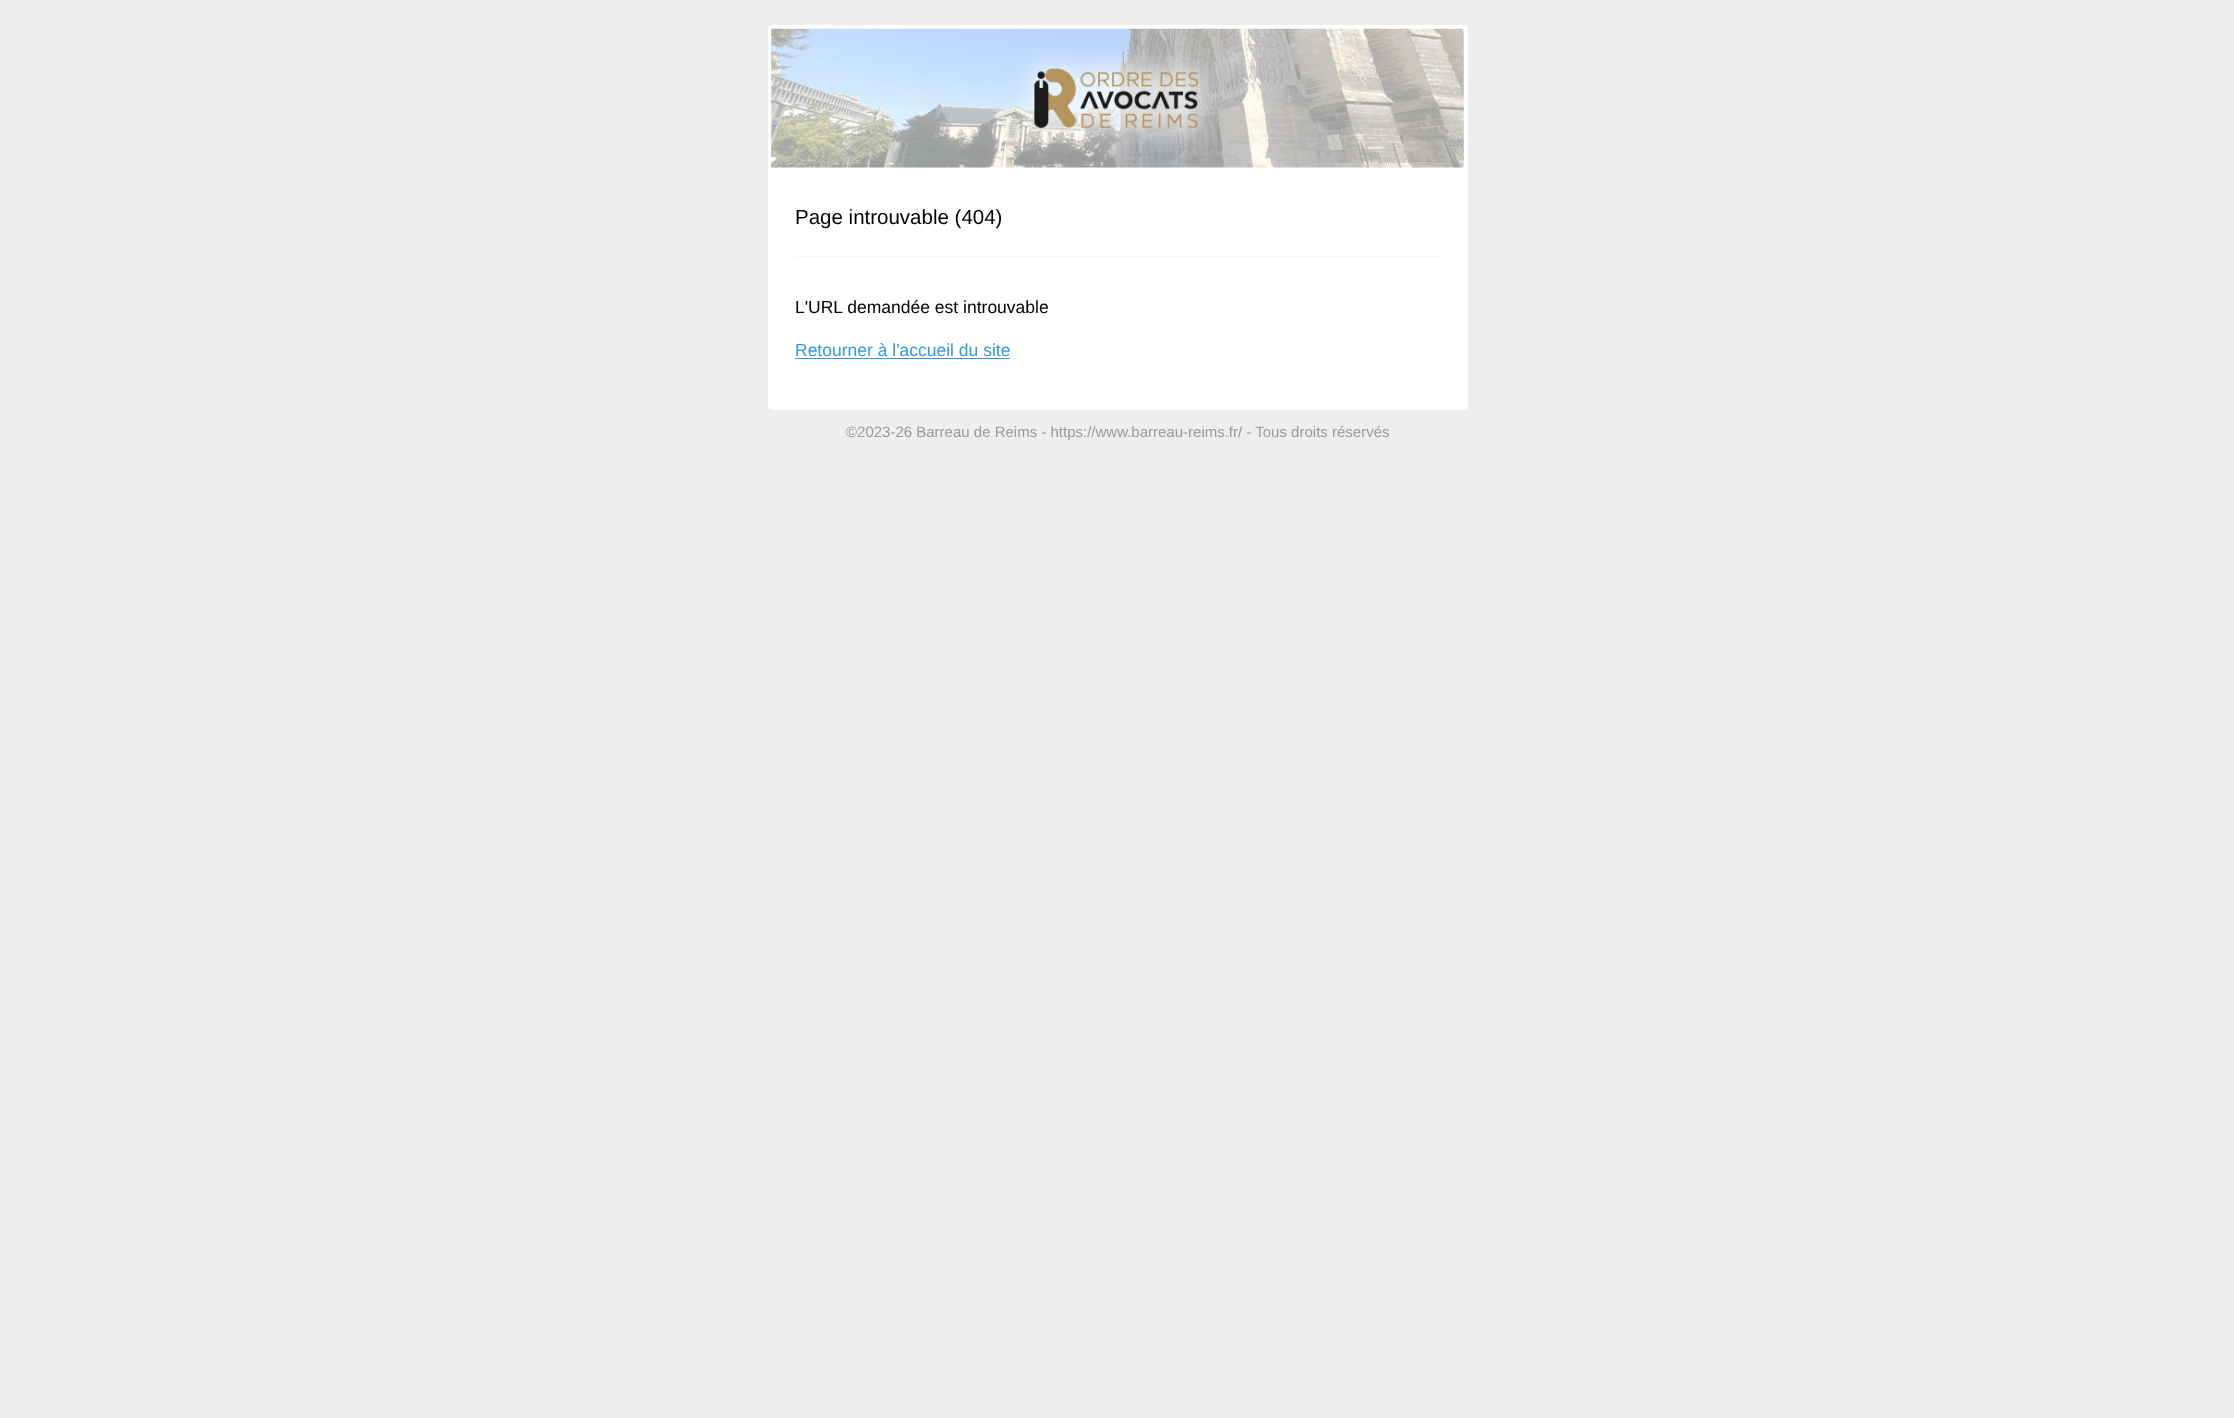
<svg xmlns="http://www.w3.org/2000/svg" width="2234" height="1418">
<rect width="100%" height="100%" fill="#eee"/>
<rect x="768" y="25" width="700" height="385" rx="4" fill="#fff"/>
<image x="771" y="28" width="693" height="140" href="media/1.png"/>
<text x="795" y="224" style="font-family:Liberation Sans;font-size:20.5px;fill:#000">Page introuvable (404)</text>
<rect x="795" y="256" width="645" height="1" fill="#f6f6f6"/>
<text x="795" y="313" style="font-family:Liberation Sans;font-size:17.5px;fill:#000">L'URL demandée est introuvable</text>
<text x="795" y="356" style="font-family:Liberation Sans;font-size:17.5px;fill:#3498db">Retourner à l'accueil du site</text>
<rect x="795" y="358" width="215" height="1" fill="#3498db"/>
<text x="846" y="437" style="font-family:Liberation Sans;font-size:15px;fill:#999">©2023-26 Barreau de Reims - https://www.barreau-reims.fr/ - Tous droits réservés</text>
</svg>
